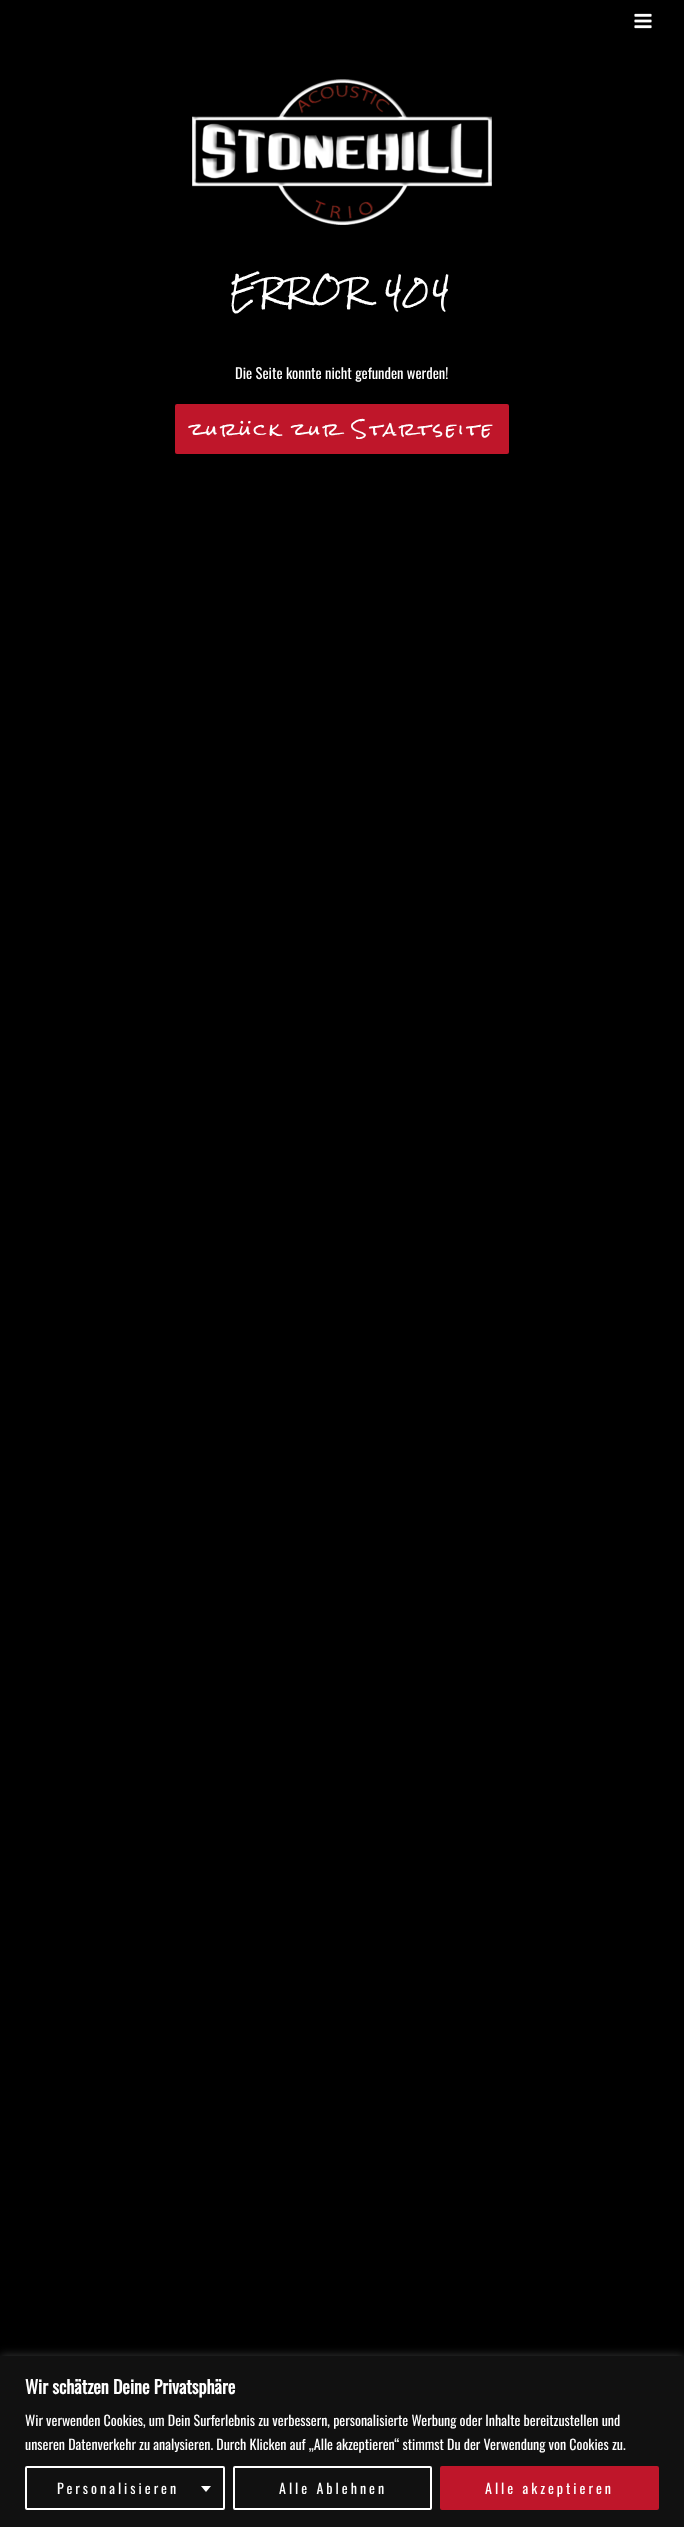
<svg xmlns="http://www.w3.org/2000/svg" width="684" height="2527">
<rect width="100%" height="100%" fill="#000"/>
<image x="634" y="13" width="18" height="16" href="media/1.png"/>
<image x="192" y="79" width="300" height="146" href="media/2.png"/>
<text x="230" y="302" style="font-family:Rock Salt;font-size:27.25px;letter-spacing:3px;fill:#fff">ERROR 404</text>
<text x="235" y="379" style="font-family:Oswald;font-size:14.6px;fill:#fff">Die Seite konnte nicht gefunden werden!</text>
<rect x="175" y="404" width="334" height="50" rx="2" fill="#bf162a"/>
<text x="190" y="436" style="font-family:Rock Salt;font-size:17px;letter-spacing:3px;fill:#fff">zurück zur Startseite</text>
<rect y="2355" width="684" height="171" fill="#acabab4d" filter="blur(5px)"/>
<rect y="2356" width="684" height="171" fill="#111"/>
<text x="25" y="2394" style="font-family:Oswald;font-size:18px;font-weight:bold;fill:#fff">Wir schätzen Deine Privatsphäre</text>
<text x="25" y="2426" style="font-family:Oswald;font-size:14px;fill:#fff">Wir verwenden Cookies, um Dein Surferlebnis zu verbessern, personalisierte Werbung oder Inhalte bereitzustellen und</text>
<text x="25" y="2450" style="font-family:Oswald;font-size:14px;fill:#fff">unseren Datenverkehr zu analysieren. Durch Klicken auf „Alle akzeptieren“ stimmst Du der Verwendung von Cookies zu.</text>
<rect x="26" y="2467" width="198" height="42" rx="1" fill="none" stroke="#fff" stroke-width="2"/>
<text x="57" y="2494" style="font-family:Oswald;font-size:14px;letter-spacing:3px;fill:#fff">Personalisieren</text>
<path d="M201 2486h10l-5 6z" fill="#fff"/>
<rect x="234" y="2467" width="197" height="42" rx="1" fill="none" stroke="#fff" stroke-width="2"/>
<text x="279" y="2494" style="font-family:Oswald;font-size:14px;letter-spacing:3px;fill:#fff">Alle Ablehnen</text>
<rect x="441" y="2467" width="217" height="42" rx="1" fill="#bf162a" stroke="#bf162a" stroke-width="2"/>
<text x="485" y="2494" style="font-family:Oswald;font-size:14px;letter-spacing:3px;fill:#fff">Alle akzeptieren</text>
</svg>
